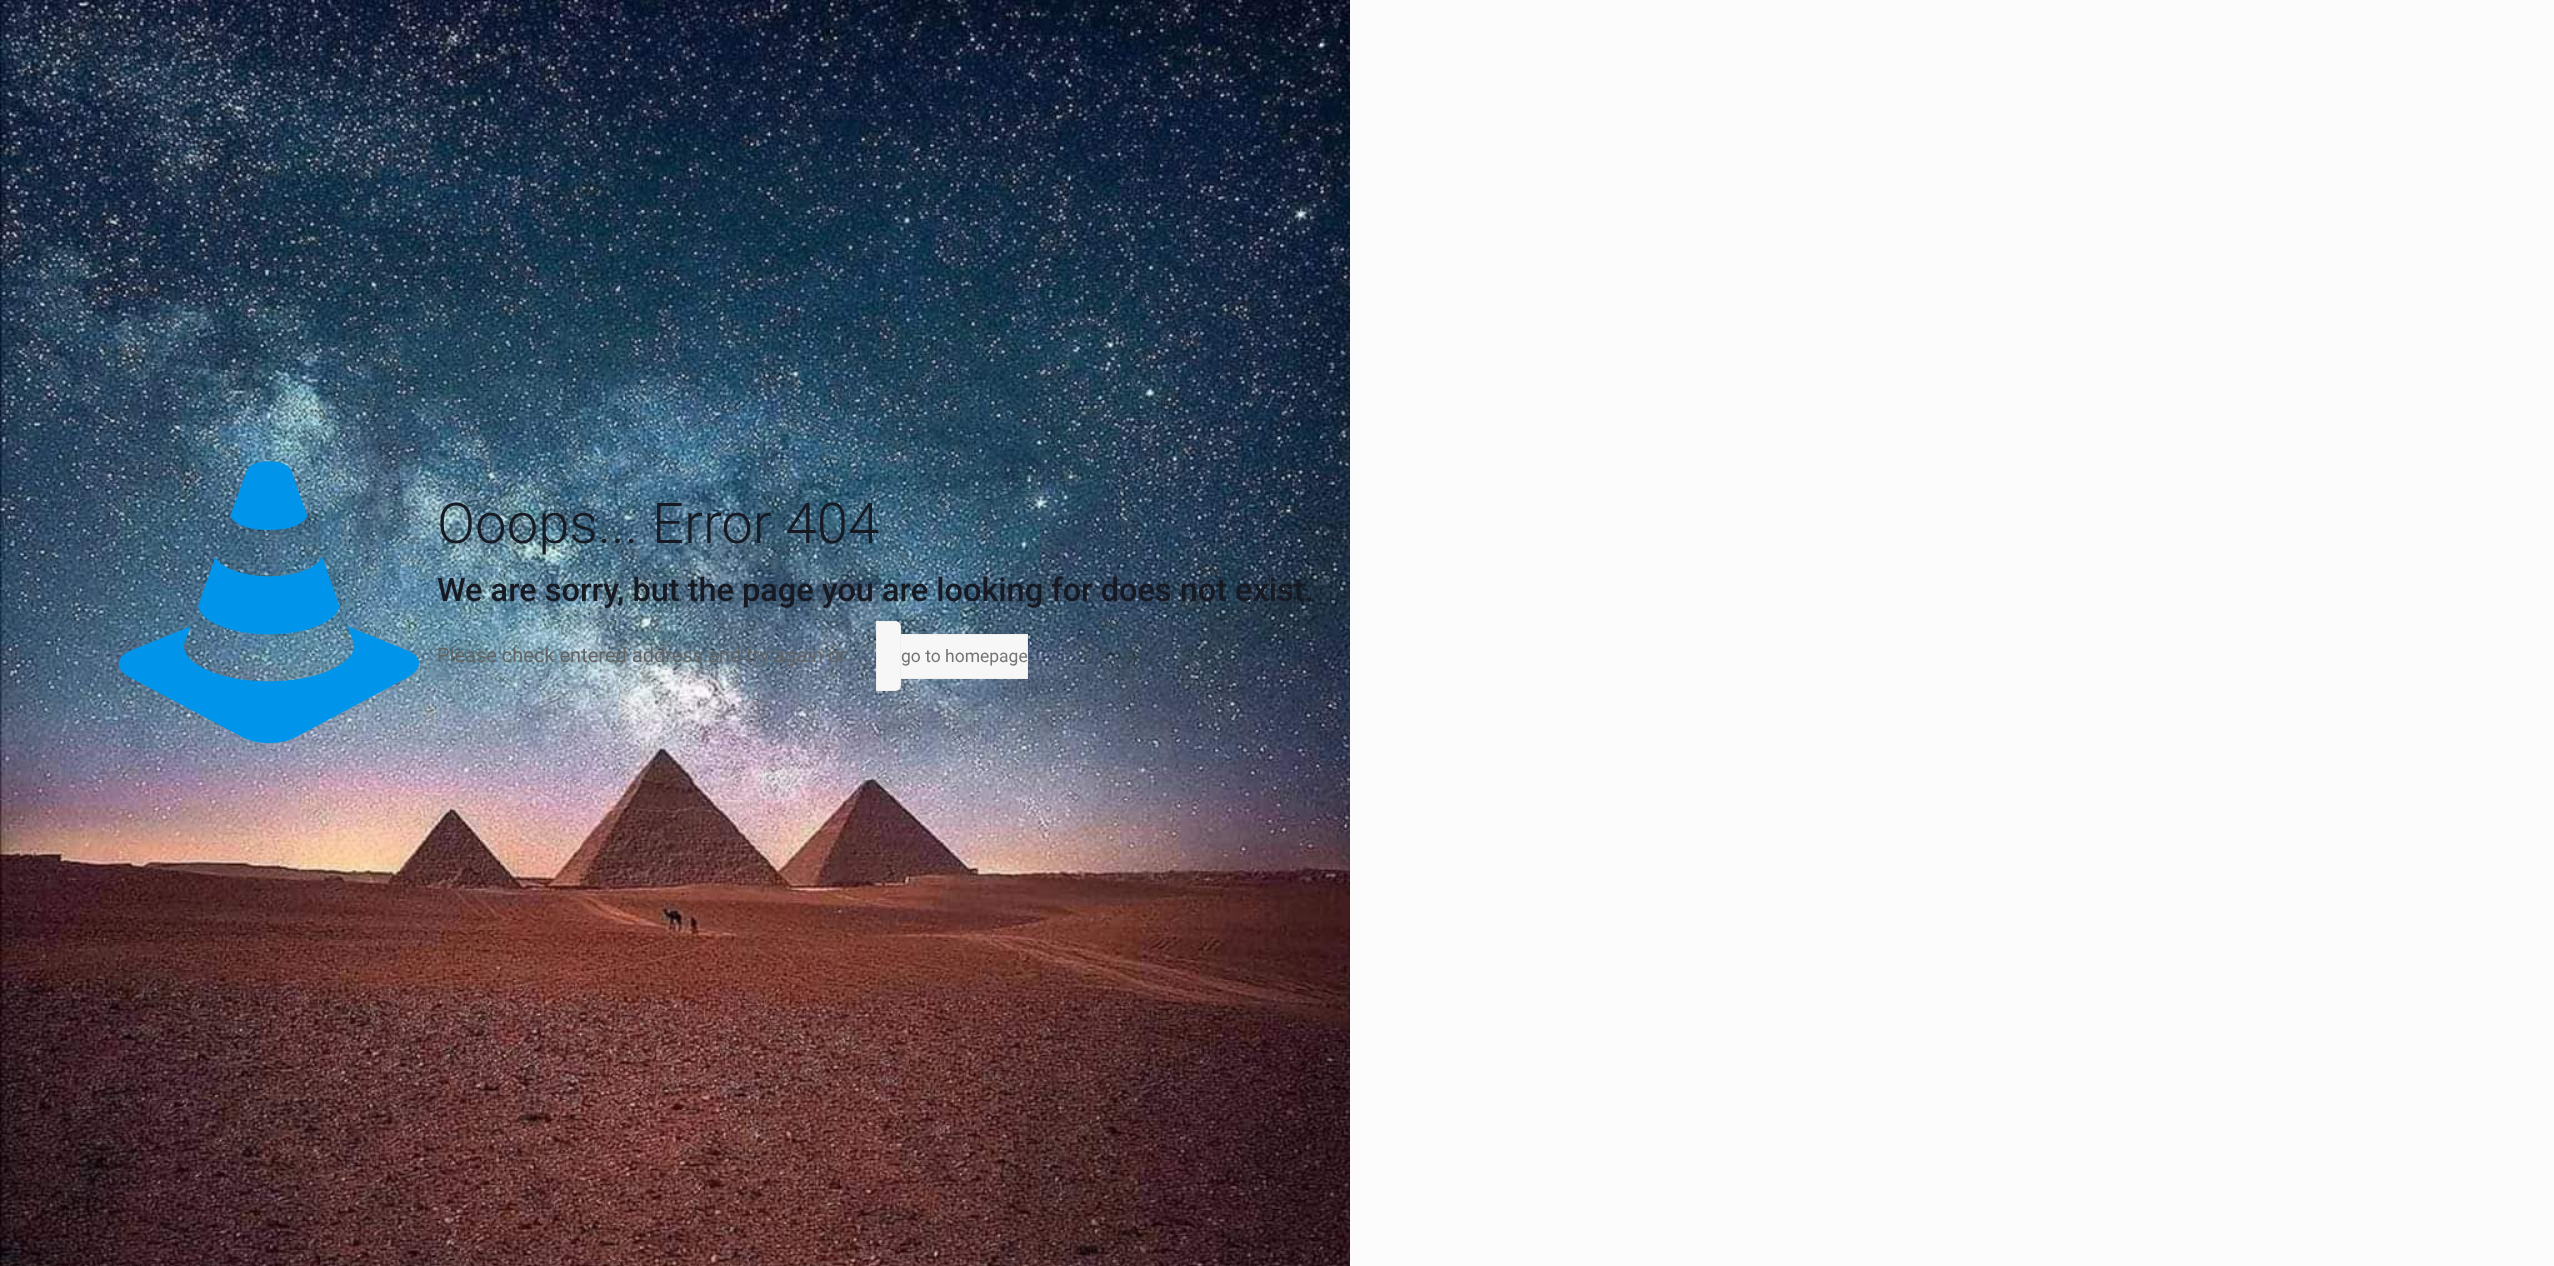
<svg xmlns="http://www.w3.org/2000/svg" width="2554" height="1266">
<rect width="100%" height="100%" fill="#fcfcfc"/>
<image x="0" y="0" width="1350" height="1266" href="media/1.png"/>
<image x="118" y="461" width="301" height="283" href="media/2.png"/>
<text x="437" y="543" style="font-family:Roboto;font-size:56.25px;font-weight:300;fill:#161922">Ooops... Error 404</text>
<text x="437" y="601" style="font-family:Roboto;font-size:32.5px;font-weight:500;fill:#161922">We are sorry, but the page you are looking for does not exist.</text>
<text x="437" y="662" style="font-family:Roboto;font-size:20px;fill:#626262">Please check entered address and try again or</text>
<rect x="901" y="634" width="127" height="45" fill="#f7f7f7"/>
<rect x="876.5" y="634.5" width="151" height="44" fill="none" stroke="#00000008"/>
<text x="901" y="662" style="font-family:Roboto;font-size:17.5px;fill:#747474">go to homepage</text>
<path d="M876 621h19c3.5 0 6 2.5 6 6v58c0 3.5-2.5 6-6 6h-19z" fill="#f7f7f7"/>
<rect x="876.5" y="621.5" width="24" height="69" fill="none" stroke="#00000008"/>
</svg>
